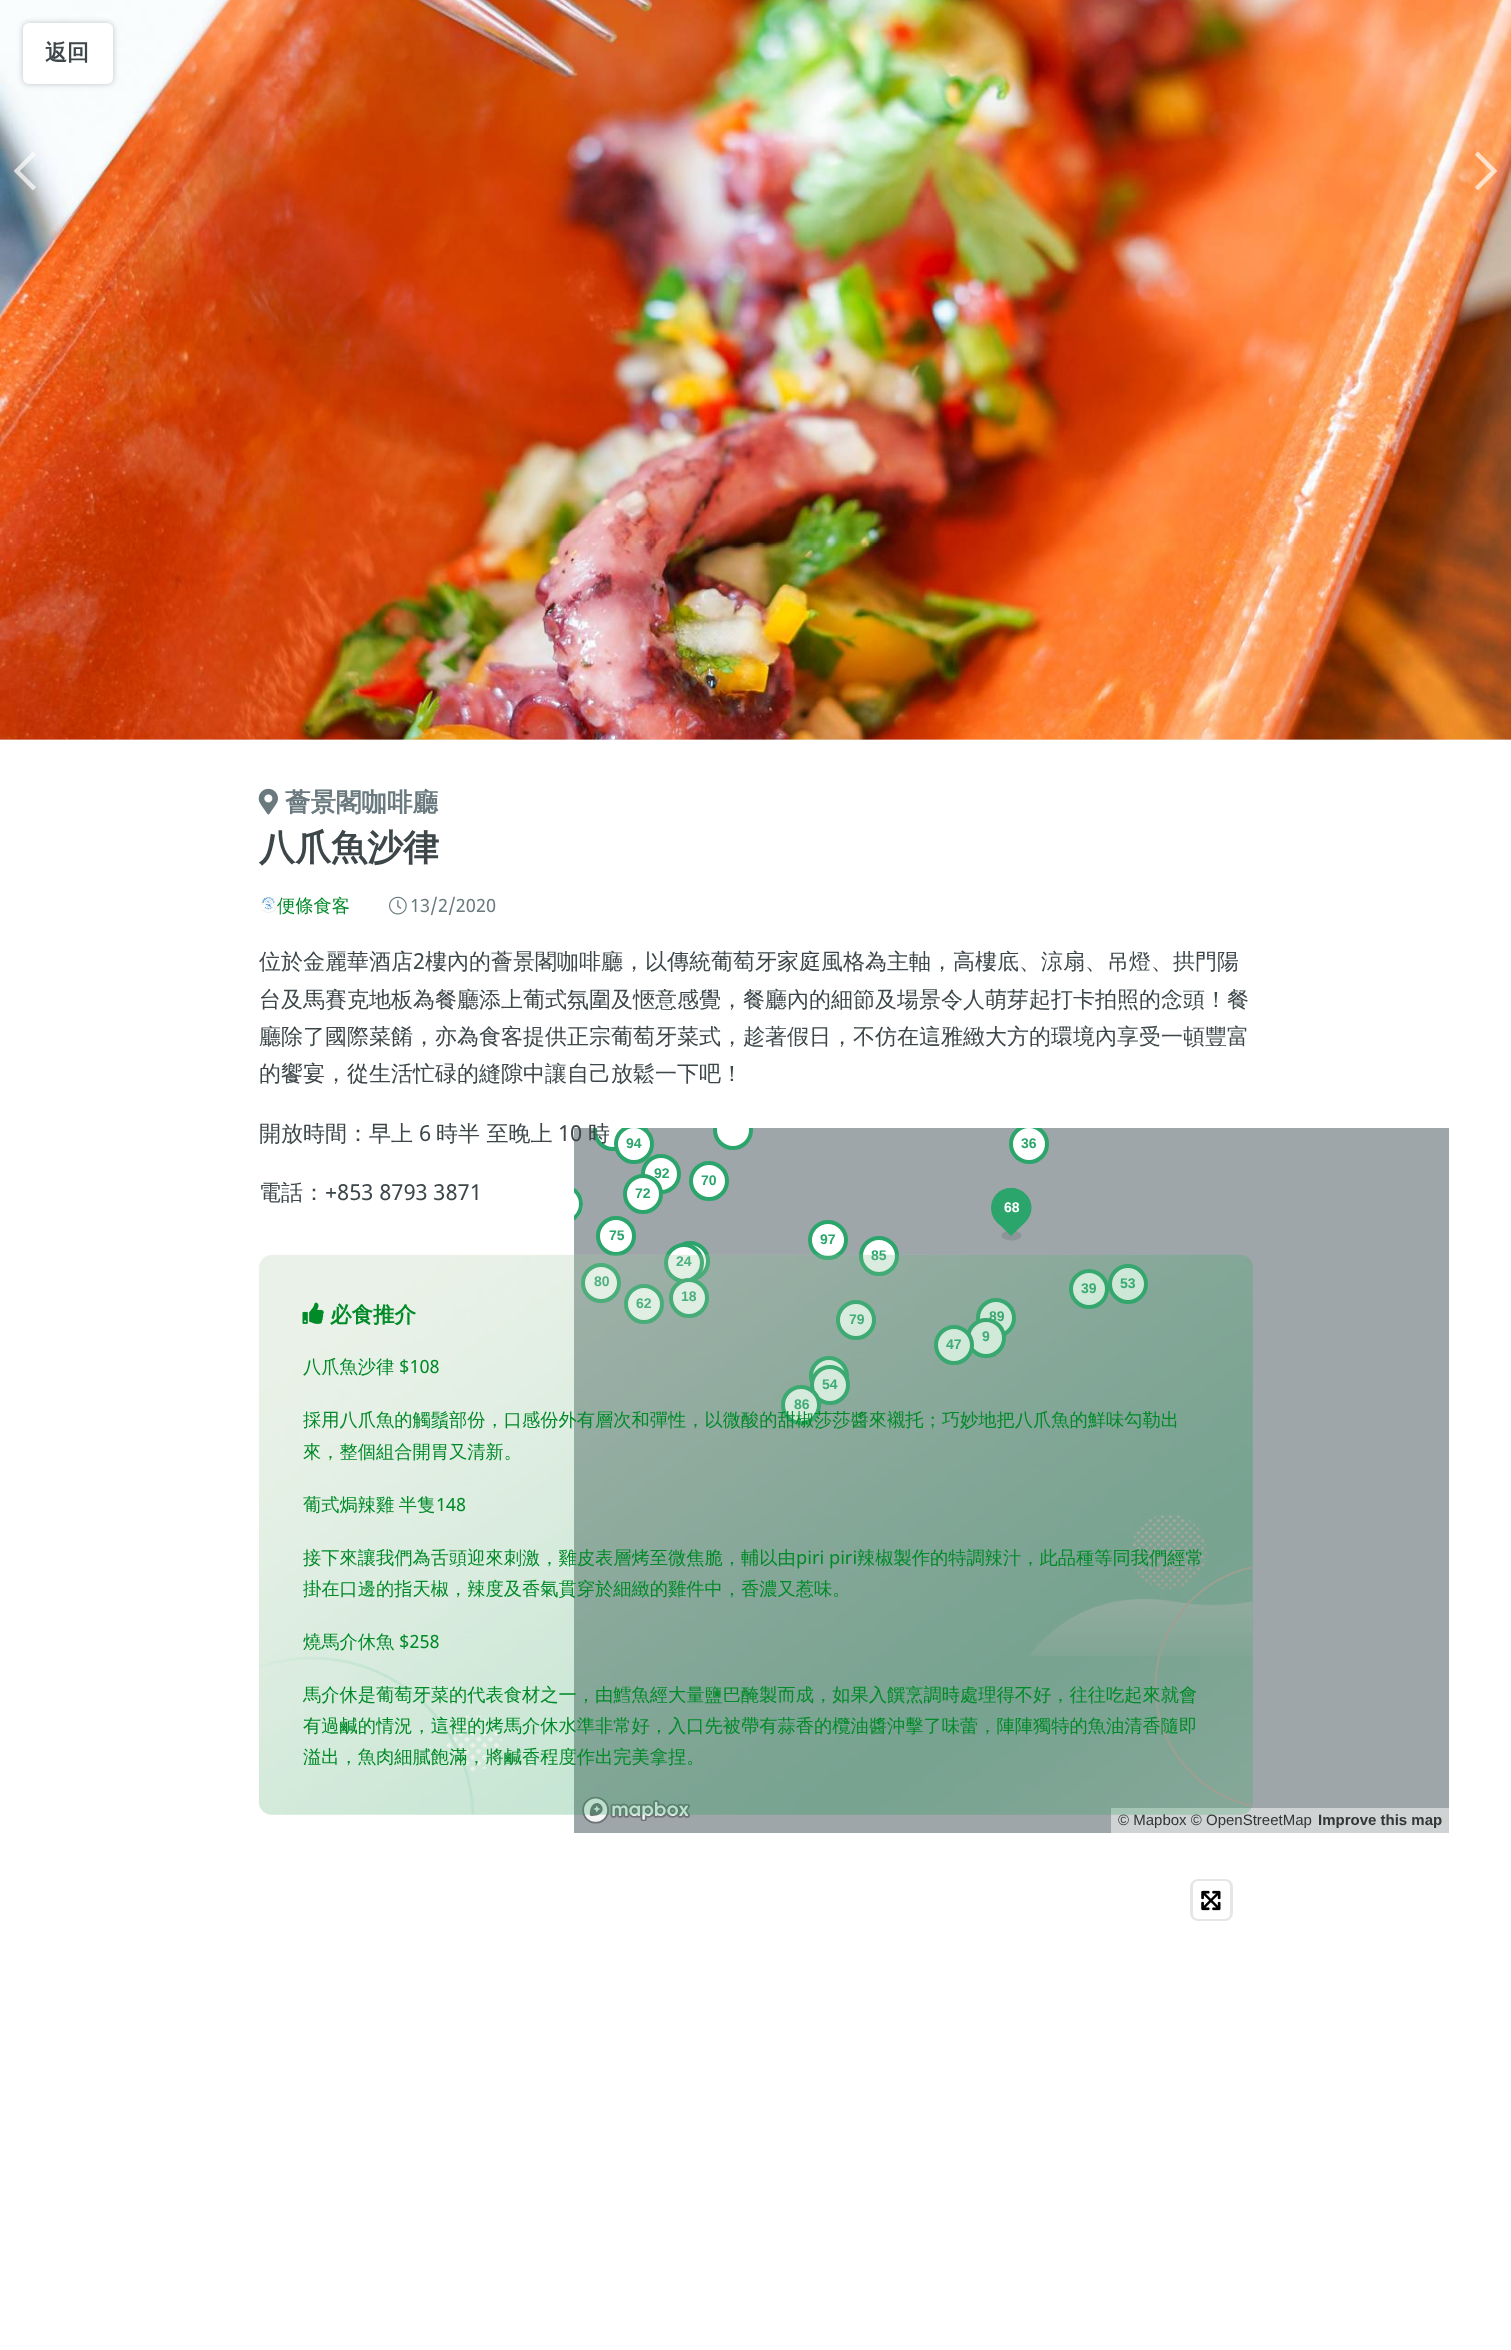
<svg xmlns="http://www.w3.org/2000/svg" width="1511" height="2350">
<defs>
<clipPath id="clip1"><rect x="574" y="1128" width="875" height="705"/></clipPath>
</defs>
<rect width="100%" height="100%" fill="#fff"/>
<rect y="739" width="1511" height="1" fill="#ecedee"/>
<image x="0" y="0" width="1511" height="740" href="media/1.png"/>
<image x="14" y="152" width="22" height="38" href="media/2.png"/>
<image x="1475" y="152" width="22" height="38" href="media/3.png"/>
<rect x="23" y="23" width="90" height="61" rx="6" fill="#80808075" filter="blur(3px)"/>
<rect x="23" y="23" width="90" height="61" rx="6" fill="#fff"/>
<text x="45" y="60" style="font-family:WenQuanYi Zen Hei;font-size:22px;font-weight:bold;fill:#3d4649">返回</text>
<image x="258" y="788" width="20" height="27" href="media/4.png"/>
<text x="285" y="811" style="font-family:WenQuanYi Zen Hei;font-size:25.5px;font-weight:bold;fill:#69797e">薈景閣咖啡廳</text>
<text x="259" y="860" style="font-family:WenQuanYi Zen Hei;font-size:36px;font-weight:bold;fill:#3d4649">八爪魚沙律</text>
<circle cx="268.5" cy="903.5" r="9.5" fill="#3d46491a"/>
<text x="277" y="912" style="font-family:WenQuanYi Zen Hei;font-size:18.25px;font-weight:500;fill:#008a28">便條食客</text>
<image x="259" y="894" width="19" height="18" href="media/5.png"/>
<image x="389" y="896" width="18" height="19" href="media/6.png"/>
<text x="410" y="912" style="font-family:Noto Sans;font-size:18.25px;fill:#69797e">13/2/2020</text>
<text x="259" y="969" style="font-family:WenQuanYi Zen Hei;font-size:22px;font-weight:500;fill:#3d4649">位於金麗華酒店</text>
<text x="413" y="969" style="font-family:Noto Sans;font-size:22px;fill:#3d4649">2</text>
<text x="425" y="969" style="font-family:WenQuanYi Zen Hei;font-size:22px;font-weight:500;fill:#3d4649">樓內的薈景閣咖啡廳，以傳統葡萄牙家庭風格為主軸，高樓底、涼扇、吊燈、拱門陽</text>
<text x="259" y="1007" style="font-family:WenQuanYi Zen Hei;font-size:22px;font-weight:500;fill:#3d4649">台及馬賽克地板為餐廳添上葡式氛圍及愜意感覺，餐廳內的細節及場景令人萌芽起打卡拍照的念頭！餐</text>
<text x="259" y="1044" style="font-family:WenQuanYi Zen Hei;font-size:22px;font-weight:500;fill:#3d4649">廳除了國際菜餚，亦為食客提供正宗葡萄牙菜式，趁著假日，不仿在這雅緻大方的環境內享受一頓豐富</text>
<text x="259" y="1081" style="font-family:WenQuanYi Zen Hei;font-size:22px;font-weight:500;fill:#3d4649">的饗宴，從生活忙碌的縫隙中讓自己放鬆一下吧！</text>
<text x="259" y="1141" style="font-family:WenQuanYi Zen Hei;font-size:22px;font-weight:500;fill:#3d4649">開放時間：早上</text>
<text x="419" y="1141" style="font-family:Noto Sans;font-size:22px;fill:#3d4649">6</text>
<text x="436" y="1141" style="font-family:WenQuanYi Zen Hei;font-size:22px;font-weight:500;fill:#3d4649">時半 至晚上</text>
<rect x="574" y="1128" width="875" height="705" fill="#9ea6a9"/>
<text x="558" y="1141" style="font-family:Noto Sans;font-size:22px;fill:#3d4649">10</text>
<g clip-path="url(#clip1)">
<circle cx="628" cy="1125" r="18" fill="none" stroke="#2ba56b" stroke-width="4"/>
<circle cx="613" cy="1131" r="18" fill="#fff" stroke="#2ba56b" stroke-width="4"/>
</g>
<text x="588" y="1141" style="font-family:WenQuanYi Zen Hei;font-size:22px;font-weight:500;fill:#3d4649">時</text>
<text x="259" y="1200" style="font-family:WenQuanYi Zen Hei;font-size:22px;font-weight:500;fill:#3d4649">電話：</text>
<text x="325" y="1200" style="font-family:Noto Sans;font-size:22px;fill:#3d4649">+853 8793 3871</text>
<circle cx="616" cy="1236" r="18" fill="#fff" stroke="#2ba56b" stroke-width="4"/>
<circle cx="828" cy="1240" r="18" fill="#fff" stroke="#2ba56b" stroke-width="4"/>
<circle cx="690" cy="1261" r="18" fill="#fff" stroke="#2ba56b" stroke-width="4"/>
<circle cx="879" cy="1256" r="18" fill="#fff" stroke="#2ba56b" stroke-width="4"/>
<circle cx="684" cy="1263" r="18" fill="#fff" stroke="#2ba56b" stroke-width="4"/>
<circle cx="601" cy="1283" r="18" fill="#fff" stroke="#2ba56b" stroke-width="4"/>
<circle cx="1128" cy="1284" r="18" fill="#fff" stroke="#2ba56b" stroke-width="4"/>
<circle cx="1089" cy="1289" r="18" fill="#fff" stroke="#2ba56b" stroke-width="4"/>
<circle cx="689" cy="1298" r="18" fill="#fff" stroke="#2ba56b" stroke-width="4"/>
<circle cx="644" cy="1304" r="18" fill="#fff" stroke="#2ba56b" stroke-width="4"/>
<circle cx="856" cy="1320" r="18" fill="#fff" stroke="#2ba56b" stroke-width="4"/>
<circle cx="996" cy="1318" r="18" fill="#fff" stroke="#2ba56b" stroke-width="4"/>
<text x="989" y="1321" style="font-family:Liberation Sans;font-size:14px;font-weight:bold;fill:#2ba56b">89</text>
<circle cx="986" cy="1338" r="18" fill="#fff" stroke="#2ba56b" stroke-width="4"/>
<circle cx="954" cy="1345" r="18" fill="#fff" stroke="#2ba56b" stroke-width="4"/>
<circle cx="829" cy="1376" r="18" fill="#fff" stroke="#2ba56b" stroke-width="4"/>
<circle cx="830" cy="1385" r="18" fill="#fff" stroke="#2ba56b" stroke-width="4"/>
<circle cx="801" cy="1405" r="18" fill="#fff" stroke="#2ba56b" stroke-width="4"/>
<image x="582" y="1796" width="108" height="28" href="media/10.png"/>
<rect x="1111" y="1808" width="338" height="25" fill="#cfd3d4"/>
<rect x="259" y="1255" width="994" height="560" rx="13" fill="#008a281a"/>
<text x="871" y="1260" style="font-family:Liberation Sans;font-size:14px;font-weight:bold;fill:#2ba56b">85</text>
<text x="676" y="1266" style="font-family:Liberation Sans;font-size:14px;font-weight:bold;fill:#2ba56b">24</text>
<text x="594" y="1286" style="font-family:Liberation Sans;font-size:14px;font-weight:bold;fill:#2ba56b">80</text>
<text x="1081" y="1293" style="font-family:Liberation Sans;font-size:14px;font-weight:bold;fill:#2ba56b">39</text>
<text x="1120" y="1288" style="font-family:Liberation Sans;font-size:14px;font-weight:bold;fill:#2ba56b">53</text>
<text x="681" y="1301" style="font-family:Liberation Sans;font-size:14px;font-weight:bold;fill:#2ba56b">18</text>
<text x="636" y="1308" style="font-family:Liberation Sans;font-size:14px;font-weight:bold;fill:#2ba56b">62</text>
<text x="849" y="1324" style="font-family:Liberation Sans;font-size:14px;font-weight:bold;fill:#2ba56b">79</text>
<text x="982" y="1341" style="font-family:Liberation Sans;font-size:14px;font-weight:bold;fill:#2ba56b">9</text>
<text x="946" y="1349" style="font-family:Liberation Sans;font-size:14px;font-weight:bold;fill:#2ba56b">47</text>
<text x="822" y="1389" style="font-family:Liberation Sans;font-size:14px;font-weight:bold;fill:#2ba56b">54</text>
<text x="794" y="1409" style="font-family:Liberation Sans;font-size:14px;font-weight:bold;fill:#2ba56b">86</text>
<text x="1118" y="1825" style="font-family:Liberation Sans;font-size:15px;fill:#343535">© Mapbox © OpenStreetMap</text>
<image x="258" y="1254" width="995" height="561" href="media/7.png"/>
<image x="302" y="1302" width="22" height="22" href="media/8.png"/>
<text x="330" y="1322" style="font-family:WenQuanYi Zen Hei;font-size:21.5px;font-weight:bold;fill:#008a28">必食推介</text>
<text x="303" y="1373" style="font-family:WenQuanYi Zen Hei;font-size:18.25px;font-weight:500;fill:#008a28">八爪魚沙律</text>
<text x="399" y="1373" style="font-family:Noto Sans;font-size:18.25px;fill:#008a28">$108</text>
<text x="303" y="1426" style="font-family:WenQuanYi Zen Hei;font-size:18.25px;font-weight:500;fill:#008a28">採用八爪魚的觸鬚部份，口感份外有層次和彈性，以微酸的甜椒莎莎醬來襯托；巧妙地把八爪魚的鮮味勾勒出</text>
<text x="303" y="1458" style="font-family:WenQuanYi Zen Hei;font-size:18.25px;font-weight:500;fill:#008a28">來，整個組合開胃又清新。</text>
<text x="303" y="1511" word-spacing="-1" style="font-family:WenQuanYi Zen Hei;font-size:18.25px;font-weight:500;fill:#008a28">葡式焗辣雞 半隻</text>
<text x="436" y="1511" style="font-family:Noto Sans;font-size:18.25px;fill:#008a28">148</text>
<text x="303" y="1564" style="font-family:WenQuanYi Zen Hei;font-size:18.25px;font-weight:500;fill:#008a28">接下來讓我們為舌頭迎來刺激，雞皮表層烤至微焦脆，輔以由</text>
<text x="796" y="1564" style="font-family:Noto Sans;font-size:18.25px;fill:#008a28">piri piri</text>
<text x="857" y="1564" style="font-family:WenQuanYi Zen Hei;font-size:18.25px;font-weight:500;fill:#008a28">辣椒製作的特調辣汁，此品種等同我們經常</text>
<text x="303" y="1595" style="font-family:WenQuanYi Zen Hei;font-size:18.25px;font-weight:500;fill:#008a28">掛在口邊的指天椒，辣度及香氣貫穿於細緻的雞件中，香濃又惹味。</text>
<text x="303" y="1648" style="font-family:WenQuanYi Zen Hei;font-size:18.25px;font-weight:500;fill:#008a28">燒馬介休魚</text>
<text x="399" y="1648" style="font-family:Noto Sans;font-size:18.25px;fill:#008a28">$258</text>
<text x="303" y="1701" style="font-family:WenQuanYi Zen Hei;font-size:18.25px;font-weight:500;fill:#008a28">馬介休是葡萄牙菜的代表食材之一，由鱈魚經大量鹽巴醃製而成，如果入饌烹調時處理得不好，往往吃起來就會</text>
<text x="303" y="1732" style="font-family:WenQuanYi Zen Hei;font-size:18.25px;font-weight:500;fill:#008a28">有過鹹的情況，這裡的烤馬介休水準非常好，入口先被帶有蒜香的欖油醬沖擊了味蕾，陣陣獨特的魚油清香隨即</text>
<text x="303" y="1763" style="font-family:WenQuanYi Zen Hei;font-size:18.25px;font-weight:500;fill:#008a28">溢出，魚肉細膩飽滿，將鹹香程度作出完美拿捏。</text>
<rect x="1191.5" y="1880.5" width="40" height="39" rx="6.5" fill="none" stroke="#e6e6e6" stroke-width="3"/>
<rect x="1193" y="1881" width="37" height="38" rx="5" fill="#fff"/>
<image x="1201" y="1890" width="20" height="21" href="media/9.png"/>
<g clip-path="url(#clip1)">
<circle cx="733" cy="1130" r="18" fill="#fff" stroke="#2ba56b" stroke-width="4"/>
<circle cx="634" cy="1144" r="18" fill="#fff" stroke="#2ba56b" stroke-width="4"/>
</g>
<text x="626" y="1148" style="font-family:Liberation Sans;font-size:14px;font-weight:bold;fill:#2ba56b">94</text>
<g clip-path="url(#clip1)">
<circle cx="1029" cy="1144" r="18" fill="#fff" stroke="#2ba56b" stroke-width="4"/>
</g>
<text x="1021" y="1148" style="font-family:Liberation Sans;font-size:14px;font-weight:bold;fill:#2ba56b">36</text>
<circle cx="661" cy="1174" r="18" fill="#fff" stroke="#2ba56b" stroke-width="4"/>
<text x="654" y="1178" style="font-family:Liberation Sans;font-size:14px;font-weight:bold;fill:#2ba56b">92</text>
<circle cx="709" cy="1181" r="18" fill="#fff" stroke="#2ba56b" stroke-width="4"/>
<text x="701" y="1185" style="font-family:Liberation Sans;font-size:14px;font-weight:bold;fill:#2ba56b">70</text>
<path d="M574 1184h-11c11 0 20 9 20 20c0 11-9 20-20 20h11z" fill="#fff"/>
<g clip-path="url(#clip1)">
<circle cx="563" cy="1204" r="18" fill="none" stroke="#2ba56b" stroke-width="4"/>
</g>
<circle cx="643" cy="1194" r="18" fill="#fff" stroke="#2ba56b" stroke-width="4"/>
<text x="635" y="1198" style="font-family:Liberation Sans;font-size:14px;font-weight:bold;fill:#2ba56b">72</text>
<circle cx="1011" cy="1208" r="20" fill="#2ba56b"/>
<ellipse cx="1011.5" cy="1235.5" rx="10" ry="5" fill="#8e9598"/>
<path d="M997 1194c15-15 41 1 33 21c-3 7-13 15-19 21l-14-14c-7-8-7-21 0-28z" fill="#2ba56b"/>
<text x="1004" y="1212" style="font-family:Liberation Sans;font-size:14px;font-weight:bold;fill:#fff">68</text>
<text x="609" y="1240" style="font-family:Liberation Sans;font-size:14px;font-weight:bold;fill:#2ba56b">75</text>
<text x="820" y="1244" style="font-family:Liberation Sans;font-size:14px;font-weight:bold;fill:#2ba56b">97</text>
<text x="1318" y="1825" style="font-family:Liberation Sans;font-size:15px;font-weight:bold;fill:#343535">Improve this map</text>
</svg>
